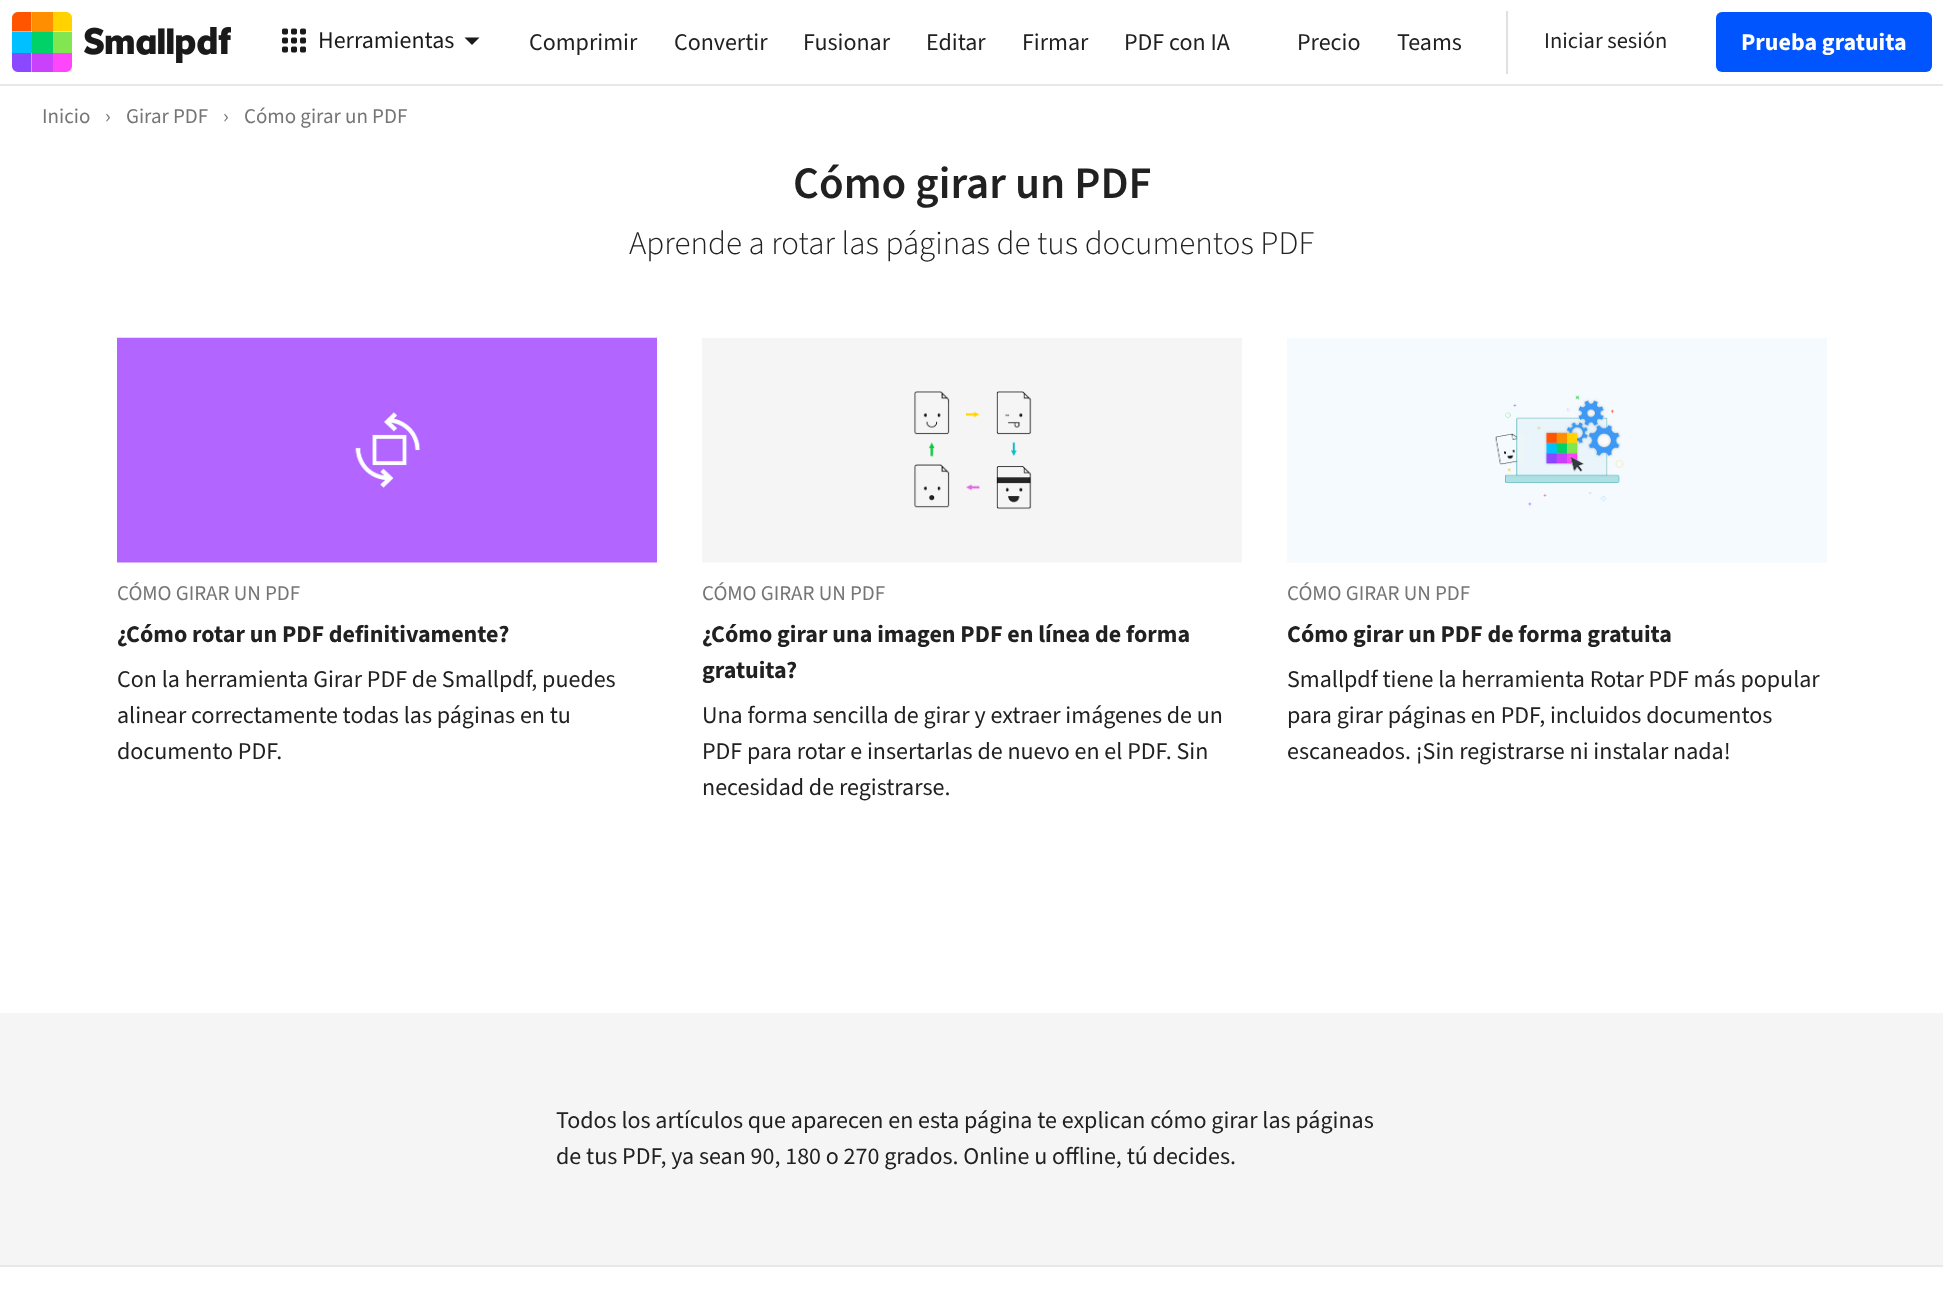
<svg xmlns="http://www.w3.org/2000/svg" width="1943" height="1295">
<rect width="100%" height="100%" fill="#fff"/>
<rect y="84" width="1943" height="2" fill="#e8e8e8"/>
<image x="12" y="12" width="60" height="60" href="media/1.png"/>
<image x="84" y="27" width="147" height="36" href="media/2.png"/>
<image x="282" y="28" width="24" height="25" href="media/3.png"/>
<text x="318" y="48" style="font-family:'Source Sans 3';font-size:24px;fill:#1a1a1a">Herramientas</text>
<path d="M479.5 37.5h-15l7.5 7.5z" fill="#1a1a1a" fill-rule="evenodd"/>
<text x="529" y="50" style="font-family:'Source Sans 3';font-size:24px;fill:#212121">Comprimir</text>
<text x="674" y="50" style="font-family:'Source Sans 3';font-size:24px;fill:#212121">Convertir</text>
<text x="803" y="50" style="font-family:'Source Sans 3';font-size:24px;fill:#212121">Fusionar</text>
<text x="926" y="50" style="font-family:'Source Sans 3';font-size:24px;fill:#212121">Editar</text>
<text x="1022" y="50" style="font-family:'Source Sans 3';font-size:24px;fill:#212121">Firmar</text>
<text x="1124" y="50" style="font-family:'Source Sans 3';font-size:24px;fill:#212121">PDF con IA</text>
<text x="1297" y="50" style="font-family:'Source Sans 3';font-size:24px;fill:#212121">Precio</text>
<text x="1397" y="50" style="font-family:'Source Sans 3';font-size:24px;fill:#212121">Teams</text>
<rect x="1506" y="11" width="2" height="63" fill="#e0e0e0"/>
<text x="1544" y="48" style="font-family:'Source Sans 3';font-size:22.5px;fill:#212121">Iniciar sesión</text>
<rect x="1716" y="12" width="216" height="60" rx="6" fill="#05f"/>
<text x="1741" y="50" style="font-family:'Source Sans 3';font-size:24px;font-weight:bold;fill:#fff">Prueba gratuita</text>
<text x="42" y="123" style="font-family:'Source Sans 3';font-size:21px;fill:#757575">Inicio</text>
<text x="105" y="123" style="font-family:'Source Sans 3';font-size:21px;fill:#757575">›</text>
<text x="126" y="123" style="font-family:'Source Sans 3';font-size:21px;fill:#757575">Girar PDF</text>
<text x="223" y="123" style="font-family:'Source Sans 3';font-size:21px;fill:#757575">›</text>
<text x="244" y="123" style="font-family:'Source Sans 3';font-size:21px;fill:#757575">Cómo girar un PDF</text>
<text x="793" y="198" style="font-family:'Source Sans 3';font-size:45px;font-weight:600;fill:#212121">Cómo girar un PDF</text>
<text x="629" y="254" style="font-family:'Source Sans 3';font-size:33px;font-weight:300;fill:#212121">Aprende a rotar las páginas de tus documentos PDF</text>
<image x="117" y="337" width="540" height="226" href="media/4.png"/>
<text x="117" y="600" style="font-family:'Source Sans 3';font-size:21px;fill:#757575">CÓMO GIRAR UN PDF</text>
<text x="117" y="642" style="font-family:'Source Sans 3';font-size:24px;font-weight:bold;fill:#212121">¿Cómo rotar un PDF definitivamente?</text>
<text x="117" y="687" style="font-family:'Source Sans 3';font-size:24px;fill:#212121">Con la herramienta Girar PDF de Smallpdf, puedes</text>
<text x="117" y="723" style="font-family:'Source Sans 3';font-size:24px;fill:#212121">alinear correctamente todas las páginas en tu</text>
<text x="117" y="759" style="font-family:'Source Sans 3';font-size:24px;fill:#212121">documento PDF.</text>
<image x="702" y="338" width="540" height="225" href="media/5.png"/>
<text x="702" y="600" style="font-family:'Source Sans 3';font-size:21px;fill:#757575">CÓMO GIRAR UN PDF</text>
<text x="702" y="642" style="font-family:'Source Sans 3';font-size:24px;font-weight:bold;fill:#212121">¿Cómo girar una imagen PDF en línea de forma</text>
<text x="702" y="678" style="font-family:'Source Sans 3';font-size:24px;font-weight:bold;fill:#212121">gratuita?</text>
<text x="702" y="723" style="font-family:'Source Sans 3';font-size:24px;fill:#212121">Una forma sencilla de girar y extraer imágenes de un</text>
<text x="702" y="759" style="font-family:'Source Sans 3';font-size:24px;fill:#212121">PDF para rotar e insertarlas de nuevo en el PDF. Sin</text>
<text x="702" y="795" style="font-family:'Source Sans 3';font-size:24px;fill:#212121">necesidad de registrarse.</text>
<image x="1287" y="338" width="540" height="225" href="media/6.png"/>
<text x="1287" y="600" style="font-family:'Source Sans 3';font-size:21px;fill:#757575">CÓMO GIRAR UN PDF</text>
<text x="1287" y="642" style="font-family:'Source Sans 3';font-size:24px;font-weight:bold;fill:#212121">Cómo girar un PDF de forma gratuita</text>
<text x="1287" y="687" style="font-family:'Source Sans 3';font-size:24px;fill:#212121">Smallpdf tiene la herramienta Rotar PDF más popular</text>
<text x="1287" y="723" style="font-family:'Source Sans 3';font-size:24px;fill:#212121">para girar páginas en PDF, incluidos documentos</text>
<text x="1287" y="759" style="font-family:'Source Sans 3';font-size:24px;fill:#212121">escaneados. ¡Sin registrarse ni instalar nada!</text>
<rect y="1013" width="1943" height="252" fill="#f5f5f5"/>
<text x="556" y="1128" style="font-family:'Source Sans 3';font-size:24px;fill:#212121">Todos los artículos que aparecen en esta página te explican cómo girar las páginas</text>
<text x="556" y="1164" style="font-family:'Source Sans 3';font-size:24px;fill:#212121">de tus PDF, ya sean 90, 180 o 270 grados. Online u offline, tú decides.</text>
<rect y="1265" width="1943" height="2" fill="#e8e8e8"/>
</svg>
